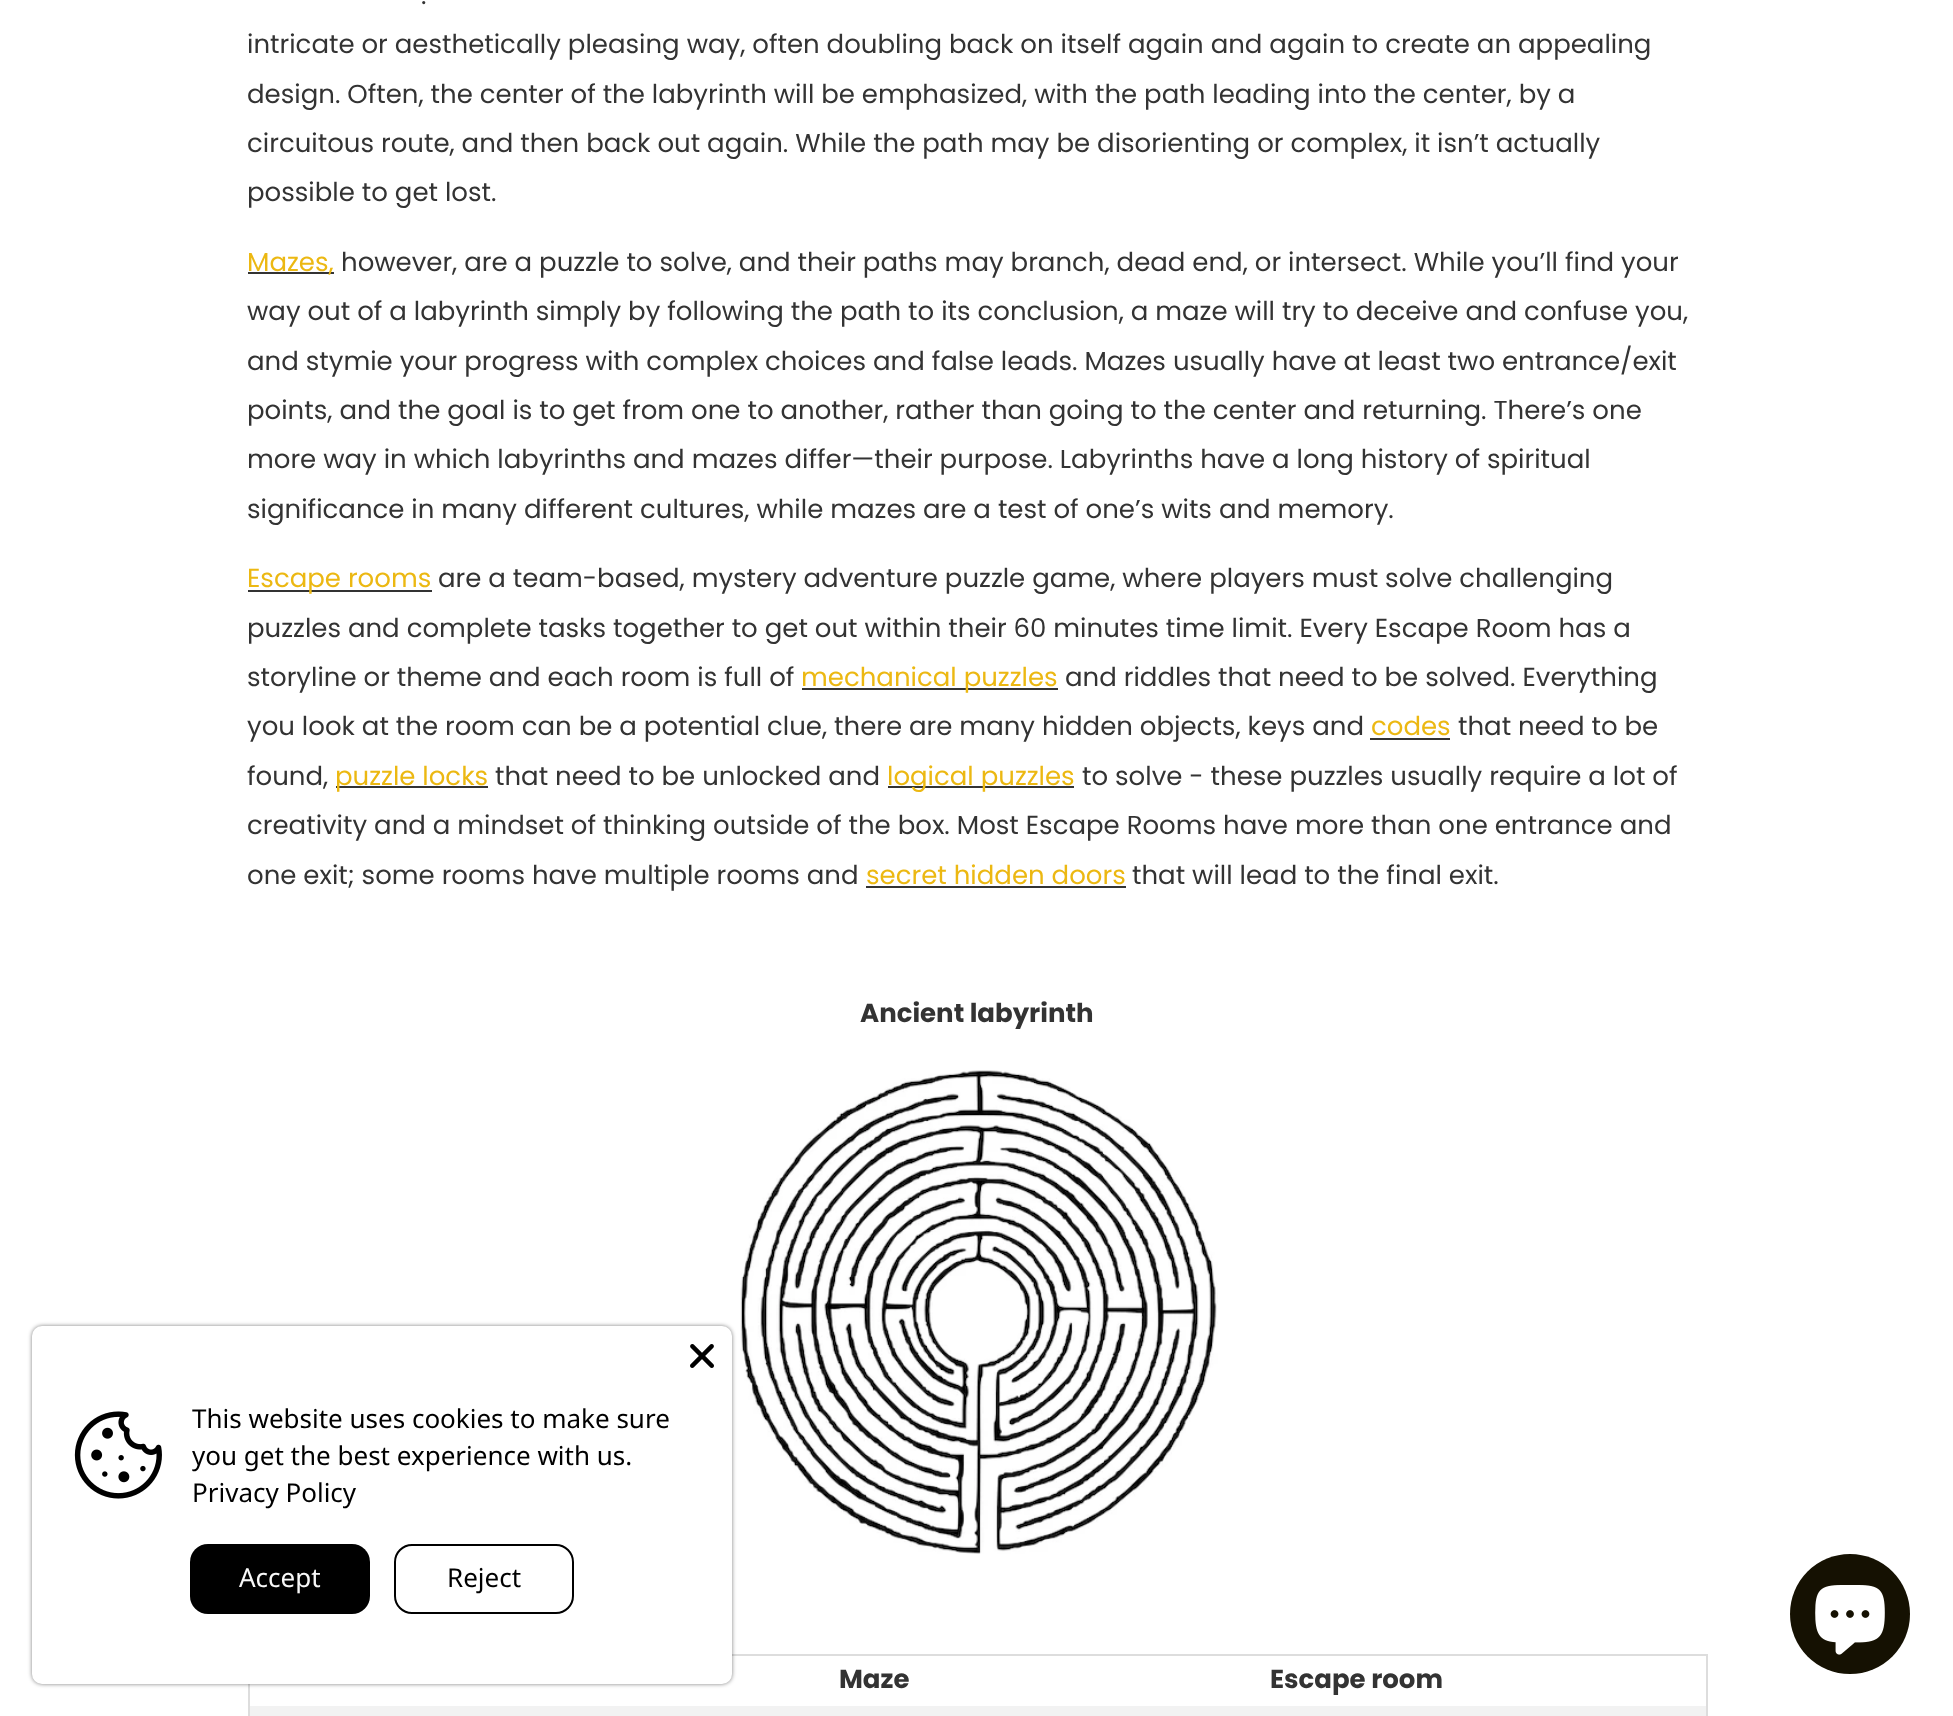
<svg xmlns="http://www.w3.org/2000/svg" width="1953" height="1716">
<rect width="100%" height="100%" fill="#fff"/>
<text x="421" y="4" style="font-family:Poppins;font-size:26px;fill:#333">.</text>
<text x="247" y="53" style="font-family:Poppins;font-size:26px;fill:#333">intricate or aesthetically pleasing way, often doubling back on itself again and again to create an appealing</text>
<text x="247" y="103" style="font-family:Poppins;font-size:26px;fill:#333">design. Often, the center of the labyrinth will be emphasized, with the path leading into the center, by a</text>
<text x="247" y="152" style="font-family:Poppins;font-size:26px;fill:#333">circuitous route, and then back out again. While the path may be disorienting or complex, it isn’t actually</text>
<text x="247" y="201" style="font-family:Poppins;font-size:26px;fill:#333">possible to get lost.</text>
<rect x="248" y="272" width="86" height="2" fill="#333"/>
<text x="247" y="271" style="font-family:Poppins;font-size:26px;fill:#ecb812">Mazes,</text>
<text x="341" y="271" style="font-family:Poppins;font-size:26px;fill:#333">however, are a puzzle to solve, and their paths may branch, dead end, or intersect. While you’ll find your</text>
<text x="247" y="320" style="font-family:Poppins;font-size:26px;fill:#333">way out of a labyrinth simply by following the path to its conclusion, a maze will try to deceive and confuse you,</text>
<text x="247" y="370" style="font-family:Poppins;font-size:26px;fill:#333">and stymie your progress with complex choices and false leads. Mazes usually have at least two entrance/exit</text>
<text x="247" y="419" style="font-family:Poppins;font-size:26px;fill:#333">points, and the goal is to get from one to another, rather than going to the center and returning. There’s one</text>
<text x="247" y="468" style="font-family:Poppins;font-size:26px;fill:#333">more way in which labyrinths and mazes differ—their purpose. Labyrinths have a long history of spiritual</text>
<text x="247" y="518" style="font-family:Poppins;font-size:26px;fill:#333">significance in many different cultures, while mazes are a test of one’s wits and memory.</text>
<rect x="248" y="590" width="184" height="2" fill="#333"/>
<text x="247" y="587" style="font-family:Poppins;font-size:26px;fill:#ecb812">Escape rooms</text>
<text x="438" y="587" style="font-family:Poppins;font-size:26px;fill:#333">are a team-based, mystery adventure puzzle game, where players must solve challenging</text>
<text x="247" y="637" style="font-family:Poppins;font-size:26px;fill:#333">puzzles and complete tasks together to get out within their 60 minutes time limit. Every Escape Room has a</text>
<text x="247" y="686" style="font-family:Poppins;font-size:26px;fill:#333">storyline or theme and each room is full of</text>
<rect x="802" y="688" width="256" height="2" fill="#333"/>
<text x="801" y="686" style="font-family:Poppins;font-size:26px;fill:#ecb812">mechanical puzzles</text>
<text x="1065" y="686" style="font-family:Poppins;font-size:26px;fill:#333">and riddles that need to be solved. Everything</text>
<text x="247" y="735" style="font-family:Poppins;font-size:26px;fill:#333">you look at the room can be a potential clue, there are many hidden objects, keys and</text>
<text x="1371" y="735" style="font-family:Poppins;font-size:26px;fill:#ecb812">codes</text>
<rect x="1370" y="738" width="80" height="2" fill="#333"/>
<text x="1458" y="735" style="font-family:Poppins;font-size:26px;fill:#333">that need to be</text>
<text x="247" y="785" style="font-family:Poppins;font-size:26px;fill:#333">found,</text>
<rect x="336" y="786" width="152" height="2" fill="#333"/>
<text x="335" y="785" style="font-family:Poppins;font-size:26px;fill:#ecb812">puzzle locks</text>
<text x="495" y="785" style="font-family:Poppins;font-size:26px;fill:#333">that need to be unlocked and</text>
<rect x="888" y="786" width="186" height="2" fill="#333"/>
<text x="887" y="785" style="font-family:Poppins;font-size:26px;fill:#ecb812">logical puzzles</text>
<text x="1082" y="785" style="font-family:Poppins;font-size:26px;fill:#333">to solve - these puzzles usually require a lot of</text>
<text x="247" y="834" style="font-family:Poppins;font-size:26px;fill:#333">creativity and a mindset of thinking outside of the box. Most Escape Rooms have more than one entrance and</text>
<text x="247" y="884" style="font-family:Poppins;font-size:26px;fill:#333">one exit; some rooms have multiple rooms and</text>
<text x="866" y="884" style="font-family:Poppins;font-size:26px;fill:#ecb812">secret hidden doors</text>
<rect x="866" y="886" width="260" height="2" fill="#333"/>
<text x="1132" y="884" style="font-family:Poppins;font-size:26px;fill:#333">that will lead to the final exit.</text>
<text x="860" y="1022" style="font-family:Poppins;font-size:26px;font-weight:bold;fill:#333">Ancient labyrinth</text>
<image x="740" y="1070" width="478" height="484" href="media/1.png"/>
<rect x="732" y="1654" width="976" height="2" fill="#ddd"/>
<rect x="1706" y="1654" width="2" height="62" fill="#ddd"/>
<rect x="248" y="1684" width="2" height="32" fill="#ddd"/>
<text x="839" y="1688" style="font-family:Poppins;font-size:26px;font-weight:bold;fill:#333">Maze</text>
<text x="1270" y="1688" style="font-family:Poppins;font-size:26px;font-weight:bold;fill:#333">Escape room</text>
<rect x="250" y="1706" width="1456" height="10" fill="#f2f2f2"/>
<rect x="32" y="1326" width="700" height="358" rx="10" fill="#00000080" filter="blur(2px)"/>
<rect x="32" y="1326" width="700" height="358" rx="10" fill="#fff"/>
<image x="690" y="1344" width="24" height="24" href="media/2.png"/>
<image x="74" y="1411" width="88" height="88" href="media/3.png"/>
<text x="192" y="1428" style="font-family:Noto Sans;font-size:26px;fill:#000">This website uses cookies to make sure</text>
<text x="192" y="1465" style="font-family:Noto Sans;font-size:26px;fill:#000">you get the best experience with us.</text>
<text x="192" y="1502" style="font-family:Noto Sans;font-size:26px;fill:#000">Privacy Policy</text>
<rect x="190" y="1544" width="180" height="70" rx="18" fill="#000"/>
<text x="239" y="1587" style="font-family:Noto Sans;font-size:26px;fill:#f8f8f8">Accept</text>
<rect x="395" y="1545" width="178" height="68" rx="17" fill="none" stroke="#000" stroke-width="2"/>
<text x="447" y="1587" style="font-family:Noto Sans;font-size:26px;fill:#000">Reject</text>
<circle cx="1850" cy="1614" r="60" fill="#151102"/>
<image x="1815" y="1585" width="70" height="70" href="media/4.png"/>
</svg>
